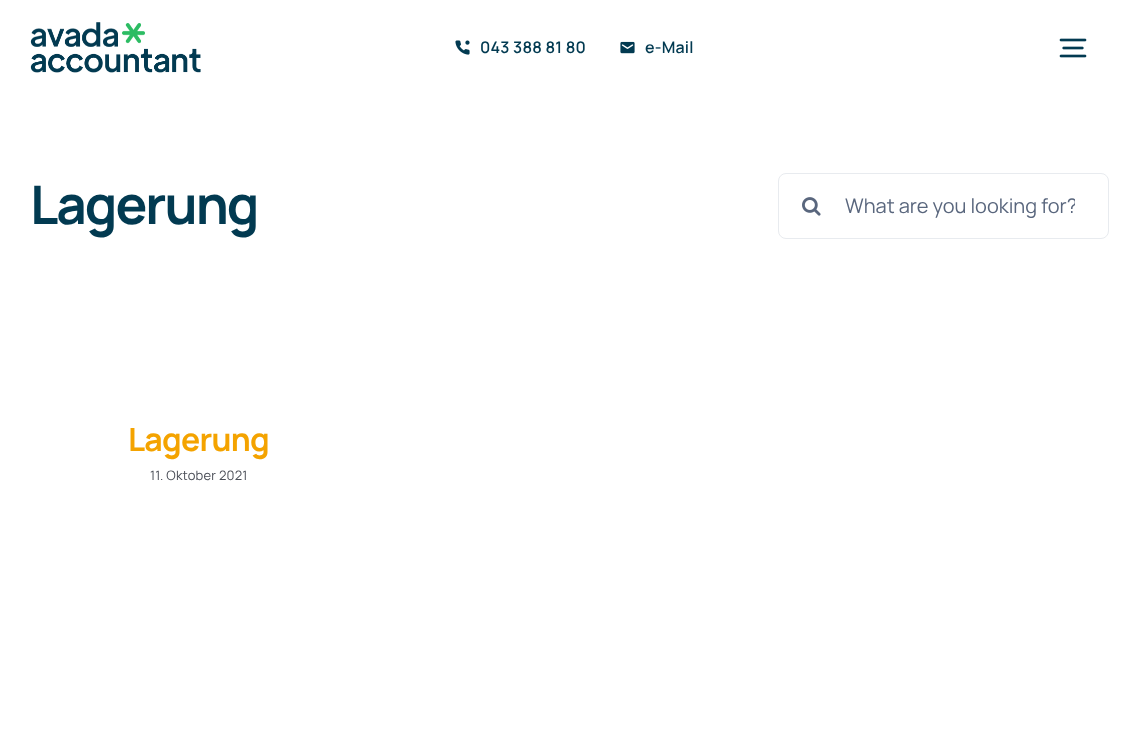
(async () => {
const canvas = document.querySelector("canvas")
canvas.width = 1139
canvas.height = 754
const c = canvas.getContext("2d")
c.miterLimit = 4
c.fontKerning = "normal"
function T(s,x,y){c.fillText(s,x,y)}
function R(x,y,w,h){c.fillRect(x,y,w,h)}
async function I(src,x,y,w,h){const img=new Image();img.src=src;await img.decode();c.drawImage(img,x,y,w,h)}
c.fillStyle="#fff"
R(0,0,1139,754)
await I("1.png",30,22,171,51)
await I("2.png",455,40,15,15)
c.letterSpacing="0.2px"
c.font="600 16px Manrope"
c.fillStyle="#023a51"
T("043 388 81 80",480,53)
await I("3.png",620,41,15,13)
T("e-Mail",645,53)
await I("4.png",1059,38,28,20)
c.letterSpacing="-2px"
c.font="bold 53px Manrope"
T("Lagerung",30,224)
c.beginPath()
c.roundRect(778.5,173.5,330,65,7.5)
c.strokeStyle="#e8ebef"
c.stroke()
await I("5.png",802,197,19,19)
c.save()
c.beginPath()
c.rect(845,192,230,27)
c.clip()
c.letterSpacing="0px"
c.font="20px Manrope"
c.fillStyle="#59667d"
T("What are you looking for?",845,213)
c.restore()
c.letterSpacing="-0.75px"
c.font="bold 32px Manrope"
c.fillStyle="#f4a300"
T("Lagerung",128,451)
c.letterSpacing="0.2px"
c.font="13px Manrope"
c.fillStyle="#4a4e57"
T("11. Oktober 2021",150,480)
})()
